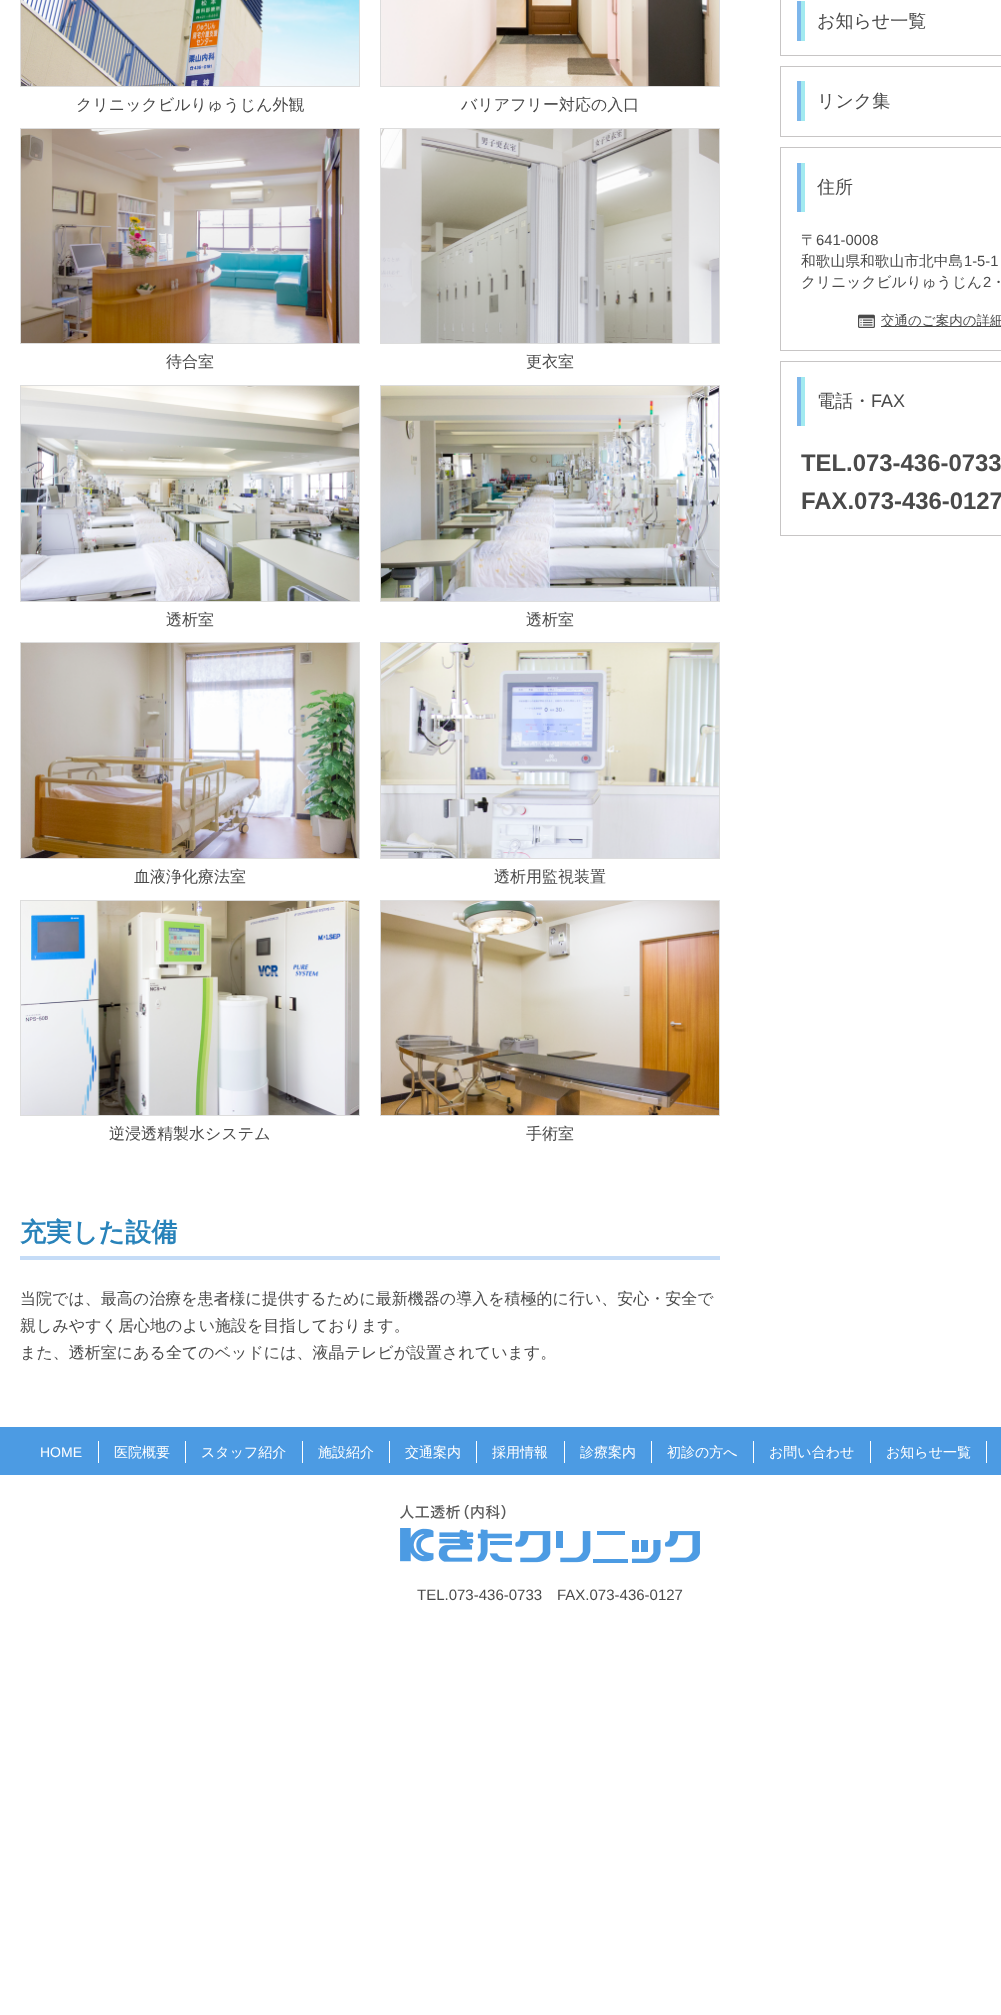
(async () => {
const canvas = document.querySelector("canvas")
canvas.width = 1001
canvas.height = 2015
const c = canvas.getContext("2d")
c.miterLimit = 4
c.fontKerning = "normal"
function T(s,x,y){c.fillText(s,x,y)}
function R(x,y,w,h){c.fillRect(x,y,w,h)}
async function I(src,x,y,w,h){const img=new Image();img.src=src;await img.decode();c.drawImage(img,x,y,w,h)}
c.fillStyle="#fff"
R(0,0,1001,2015)
c.strokeStyle="#ddd"
c.strokeRect(20.5,-.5,339,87)
await I("1.png",21,0,338,86)
c.font="500 16px WenQuanYi Zen Hei"
c.fillStyle="#4a4a4a"
T("クリニックビルりゅうじん外観",76,110)
c.strokeRect(380.5,-.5,339,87)
await I("2.png",381,0,338,86)
T("バリアフリー対応の入口",461,110)
c.strokeRect(20.5,128.5,339,215)
await I("3.png",21,129,338,214)
T("待合室",166,367)
c.strokeRect(380.5,128.5,339,215)
await I("4.png",381,129,338,214)
T("更衣室",526,367)
c.strokeRect(20.5,385.5,339,216)
await I("5.png",21,386,338,215)
T("透析室",166,625)
c.strokeRect(380.5,385.5,339,216)
await I("6.png",381,386,338,215)
T("透析室",526,625)
c.strokeRect(20.5,642.5,339,216)
await I("7.png",21,643,338,215)
T("血液浄化療法室",134,882)
c.strokeRect(380.5,642.5,339,216)
await I("8.png",381,643,338,215)
T("透析用監視装置",494,882)
c.strokeRect(20.5,900.5,339,215)
await I("9.png",21,901,338,214)
T("逆浸透精製水システム",109,1139)
c.strokeRect(380.5,900.5,339,215)
await I("10.png",381,901,338,214)
T("手術室",526,1139)
c.fillStyle="#c5dcf7"
R(20,1256,700,4)
c.font="bold 26px WenQuanYi Zen Hei"
c.fillStyle="#2983ba"
T("充実した設備",20,1241)
c.font="500 16px WenQuanYi Zen Hei"
c.fillStyle="#4a4a4a"
T("当院では、最高の治療を患者様に提供するために最新機器の導入を積極的に行い、安心・安全で",20,1304)
T("親しみやすく居心地のよい施設を目指しております。",20,1331)
T("また、透析室にある全てのベッドには、液晶テレビが設置されています。",20,1358)
c.strokeStyle="#c7c5c5"
c.strokeRect(780.5,-.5,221,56)
c.font="500 18px WenQuanYi Zen Hei"
T("お知らせ一覧",817,27)
c.fillStyle="#7db6eb"
R(797,1,4,40)
c.fillStyle="#a2eaf0"
R(801,1,4,40)
c.strokeRect(780.5,66.5,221,70)
c.fillStyle="#4a4a4a"
T("リンク集",817,107)
c.fillStyle="#7db6eb"
R(797,81,4,40)
c.fillStyle="#a2eaf0"
R(801,81,4,40)
c.strokeRect(780.5,147.5,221,203)
c.fillStyle="#7db6eb"
R(797,163,4,49)
c.fillStyle="#a2eaf0"
R(801,163,4,49)
c.fillStyle="#4a4a4a"
T("住所",817,193)
c.font="500 14.75px WenQuanYi Zen Hei"
T("〒",801,245)
c.font="14.75px Liberation Sans"
T("641-0008",816,245)
c.font="500 14.75px WenQuanYi Zen Hei"
T("和歌山県和歌山市北中島",801,266)
c.font="14.75px Liberation Sans"
T("1-5-1",964,266)
c.font="500 14.75px WenQuanYi Zen Hei"
T("クリニックビルりゅうじん",801,287)
c.font="14.75px Liberation Sans"
T("2",983,287)
c.font="500 14.75px WenQuanYi Zen Hei"
T("・",991,287)
await I("11.png",858,314,17,14)
R(881,326,120,1)
c.font="500 13.5px WenQuanYi Zen Hei"
T("交通のご案内の詳細",881,325)
c.strokeRect(780.5,361.5,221,174)
c.fillStyle="#7db6eb"
R(797,377,4,49)
c.fillStyle="#a2eaf0"
R(801,377,4,49)
c.font="500 18px WenQuanYi Zen Hei"
c.fillStyle="#4a4a4a"
T("電話・",817,407)
c.font="18px Liberation Sans"
T("FAX",871,407)
c.font="bold 23.9px Liberation Sans"
T("TEL.073-436-0733",801,471)
T("FAX.073-436-0127",801,509)
c.fillStyle="#4c9be3"
R(0,1427,1001,48)
c.fillStyle="#fff"
R(98,1441,1,22)
c.font="14px Liberation Sans"
T("HOME",40,1457)
R(185,1441,1,22)
c.font="500 14px WenQuanYi Zen Hei"
T("医院概要",114,1457)
R(302,1441,1,22)
T("スタッフ紹介",201,1457)
R(389,1441,1,22)
T("施設紹介",318,1457)
R(476,1441,1,22)
T("交通案内",405,1457)
R(564,1441,1,22)
T("採用情報",492,1457)
R(651,1441,1,22)
T("診療案内",580,1457)
R(753,1441,1,22)
T("初診の方へ",667,1457)
R(870,1441,1,22)
T("お問い合わせ",769,1457)
R(986,1441,1,22)
T("お知らせ一覧",886,1457)
await I("12.png",400,1505,300,58)
c.font="15px Liberation Sans"
c.fillStyle="#4a4a4a"
T("TEL.073-436-0733",417,1600)
T("FAX.073-436-0127",557,1600)
})()
